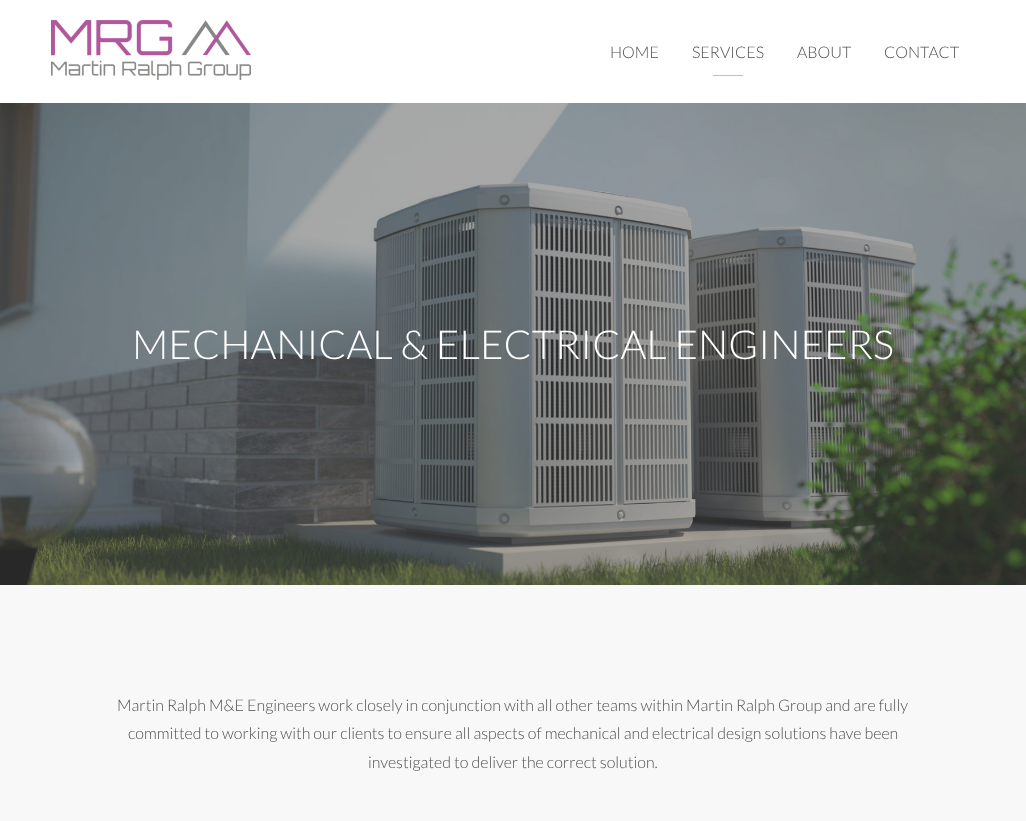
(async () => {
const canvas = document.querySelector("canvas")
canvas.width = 1026
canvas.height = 821
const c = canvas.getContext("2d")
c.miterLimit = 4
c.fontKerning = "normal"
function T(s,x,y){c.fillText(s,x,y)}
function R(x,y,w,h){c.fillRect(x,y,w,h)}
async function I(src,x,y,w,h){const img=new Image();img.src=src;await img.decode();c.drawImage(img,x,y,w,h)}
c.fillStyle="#fff"
R(0,0,1026,821)
await I("1.png",51,20,200,60)
c.font="300 16px Lato"
c.fillStyle="#505050"
T("HOME",610,58)
T("SERVICES",692,58)
c.fillStyle="#c0c498"
R(713,75,30,1)
c.fillStyle="#505050"
T("ABOUT",797,58)
T("CONTACT",884,58)
await I("2.png",0,103,1026,482)
c.font="300 40px Lato"
c.fillStyle="#fff"
T("MECHANICAL & ELECTRICAL ENGINEERS",132,359)
c.fillStyle="#f8f8f8"
R(0,585,1026,236)
c.font="300 16px Lato"
c.fillStyle="#505050"
T("Martin Ralph M&E Engineers work closely in conjunction with all other teams within Martin Ralph Group and are fully",117,711)
T("committed to working with our clients to ensure all aspects of mechanical and electrical design solutions have been",128,739)
T("investigated to deliver the correct solution.",368,768)
})()
